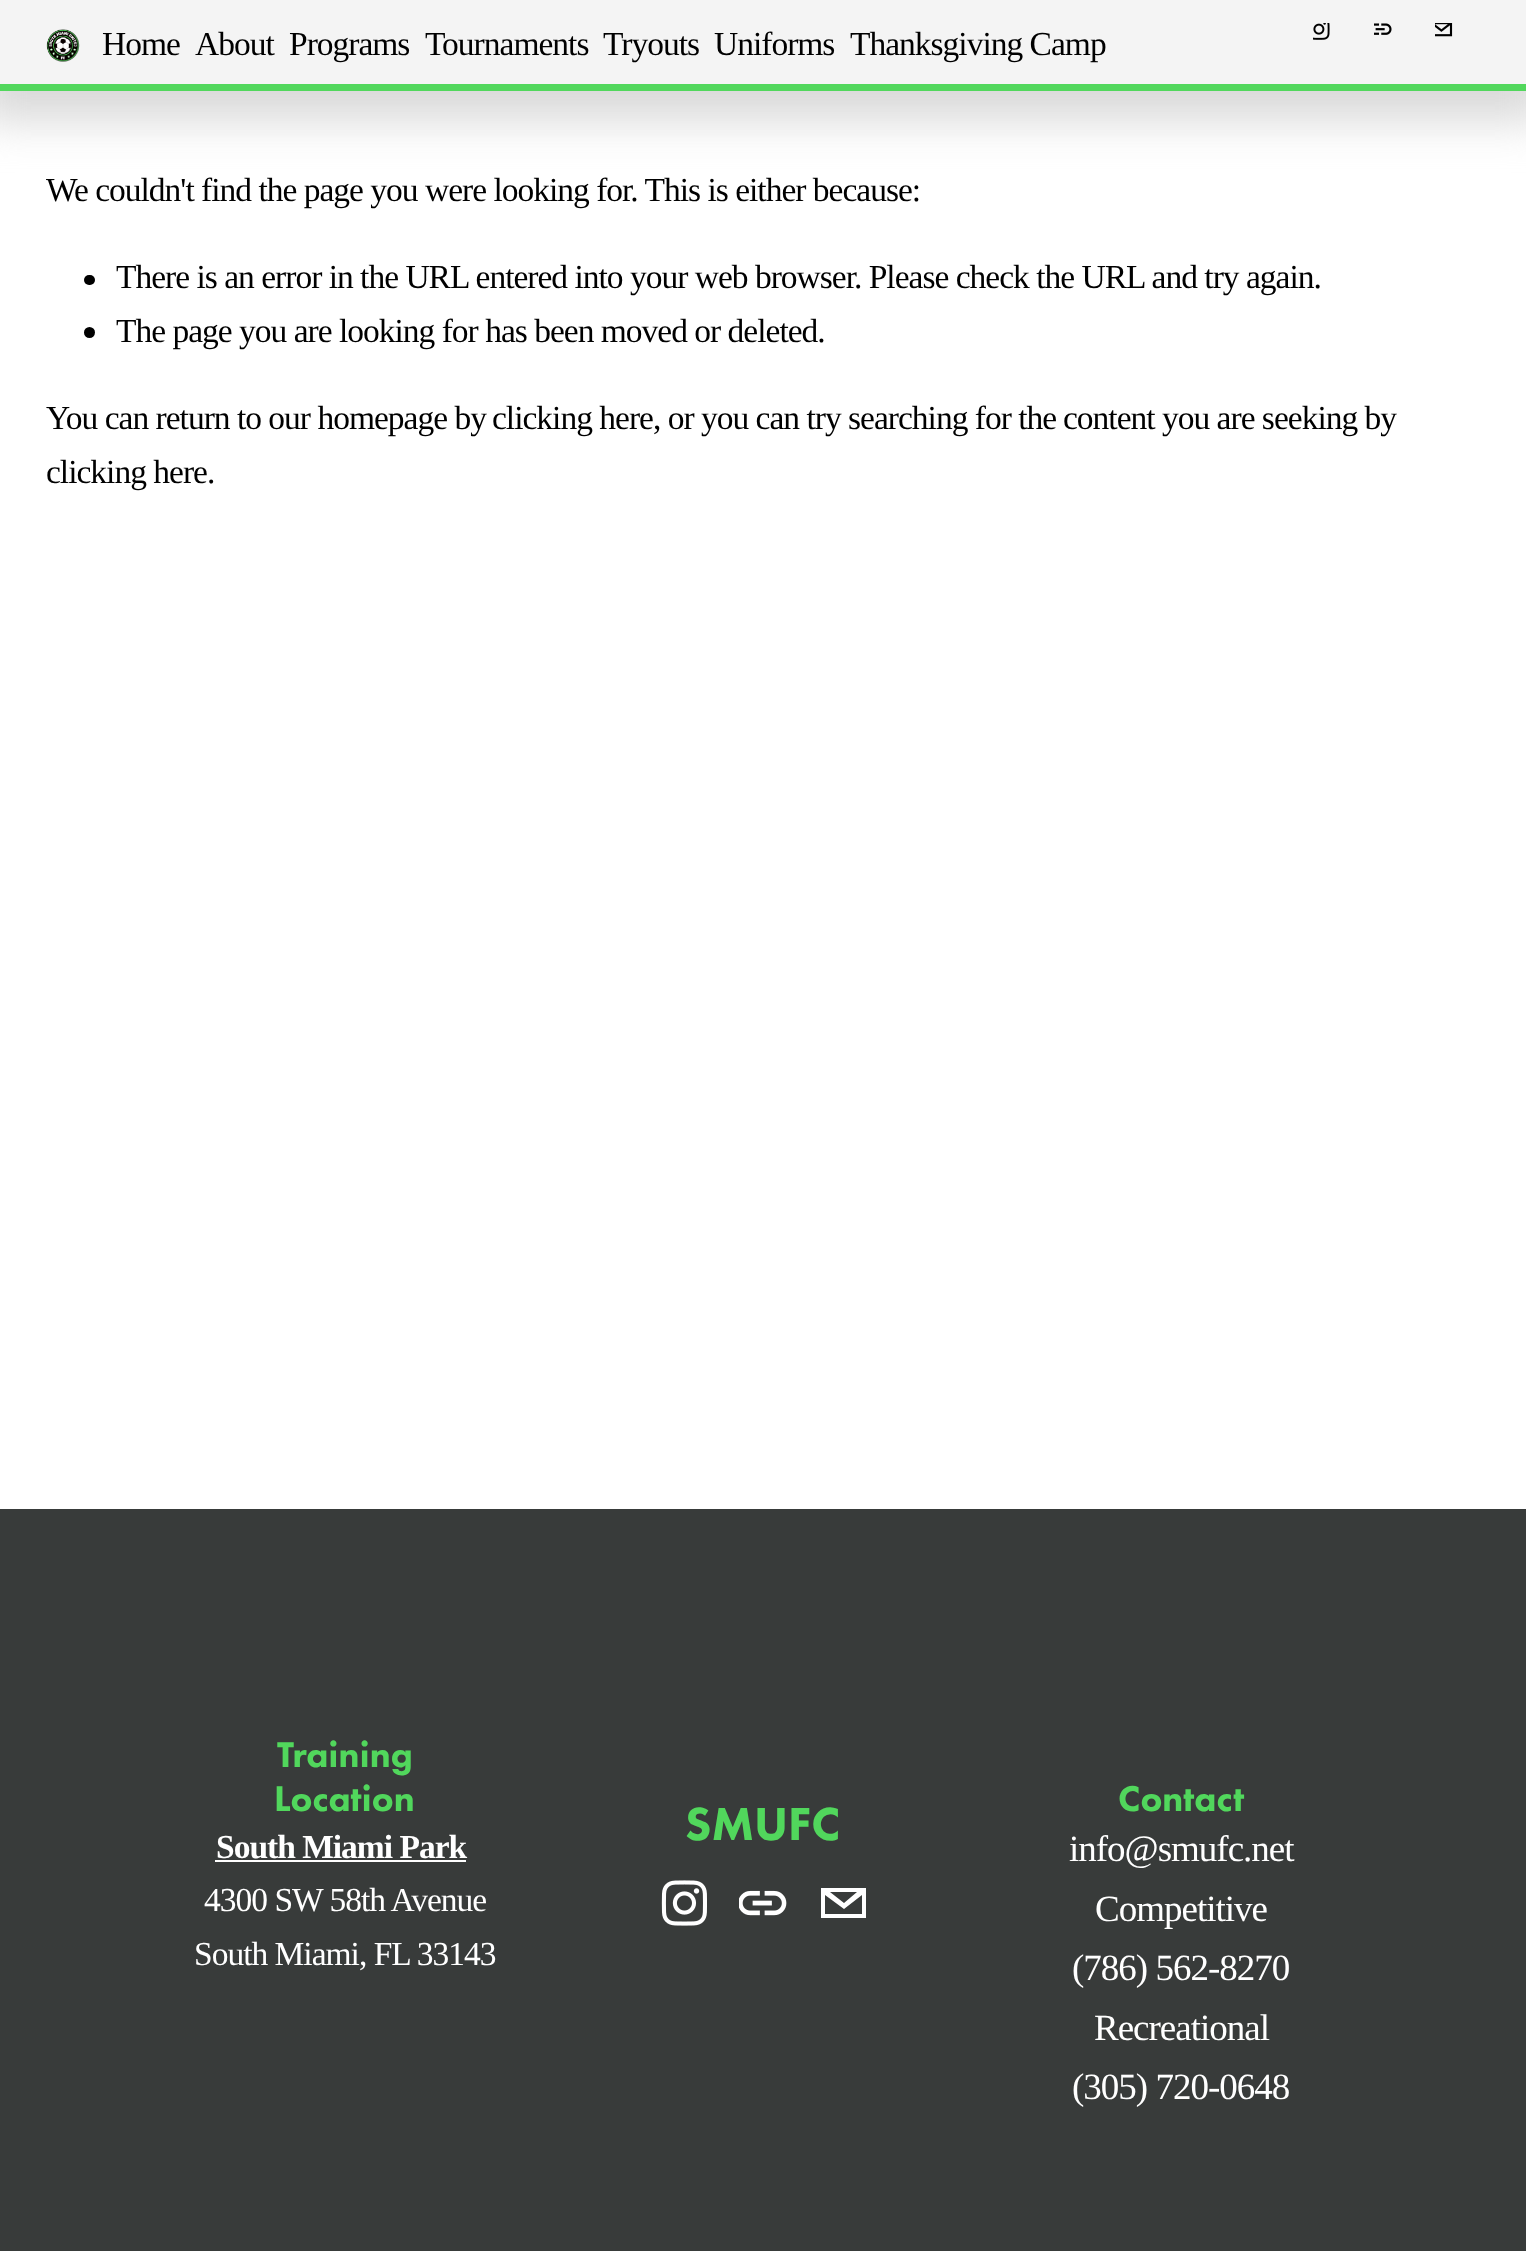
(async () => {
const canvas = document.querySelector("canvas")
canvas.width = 1526
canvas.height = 2251
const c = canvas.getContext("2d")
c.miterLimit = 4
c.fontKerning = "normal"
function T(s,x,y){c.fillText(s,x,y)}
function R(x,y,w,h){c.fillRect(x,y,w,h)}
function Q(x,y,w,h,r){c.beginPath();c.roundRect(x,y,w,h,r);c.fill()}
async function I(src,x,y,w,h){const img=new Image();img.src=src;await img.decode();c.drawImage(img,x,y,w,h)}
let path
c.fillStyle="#fff"
R(0,0,1526,2251)
c.fillStyle="#d9d9d9"
c.filter="blur(22px)"
c.beginPath()
c.rect(-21,-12,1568,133)
c.fill()
c.filter="none"
c.fillStyle="#f4f4f4"
R(0,0,1526,84)
await I("1.png",46,29,34,33)
c.letterSpacing="-1px"
c.font="33.5px Liberation Serif"
c.fillStyle="#000"
T("Home",102,55)
T("About",195,55)
T("Programs",289,55)
T("Tournaments",425,55)
T("Tryouts",603,55)
T("Uniforms",714,55)
T("Thanksgiving Camp",850,55)
await I("2.png",1313,23,17,17)
await I("3.png",1374,23,18,12)
await I("4.png",1435,23,18,14)
c.fillStyle="#51d75c"
R(0,84,1526,7)
c.fillStyle="#000"
T("We couldn't find the page you were looking for. This is either because:",46,201)
Q(84,275,11,10,5)
T("There is an error in the URL entered into your web browser. Please check the URL and try again.",116,288)
c.beginPath()
c.arc(89.5,332.5,5.5,0,7)
c.fill()
T("The page you are looking for has been moved or deleted.",116,342)
T("You can return to our homepage by",46,429)
T("clicking here, or you can try searching for the",492,429)
T("content you are seeking by",1063,429)
T("clicking here.",46,483)
c.fillStyle="#383b3a"
R(0,1509,1526,742)
c.letterSpacing="0px"
c.font="900 37px Futura PT"
c.fillStyle="#51d75c"
T("Training",277,1767)
T("Location",274,1811)
T("Contact",1118,1811)
c.font="900 48px Futura PT"
T("SMUFC",685,1840)
c.letterSpacing="-1px"
c.font="bold 33.5px Liberation Serif"
c.fillStyle="#fff"
T("South Miami Park",216,1858)
R(215,1860,251,2)
c.font="33.5px Liberation Serif"
T("4300 SW 58th Avenue",204,1911)
T("South Miami, FL 33143",194,1965)
await I("5.png",661,1880,46,46)
await I("6.png",739,1890,48,26)
path = new Path2D("M821 1888v30h45v-30zm36 4l-13 11l-14-11zm-32 22v-19l19 14l18-14v19z")
c.fill(path)
c.font="37px Liberation Serif"
T("info@smufc.net",1069,1861)
T("Competitive",1095,1921)
T("(786) 562-8270",1072,1980)
T("Recreational",1094,2040)
T("(305) 720-0648",1072,2099)
})()
